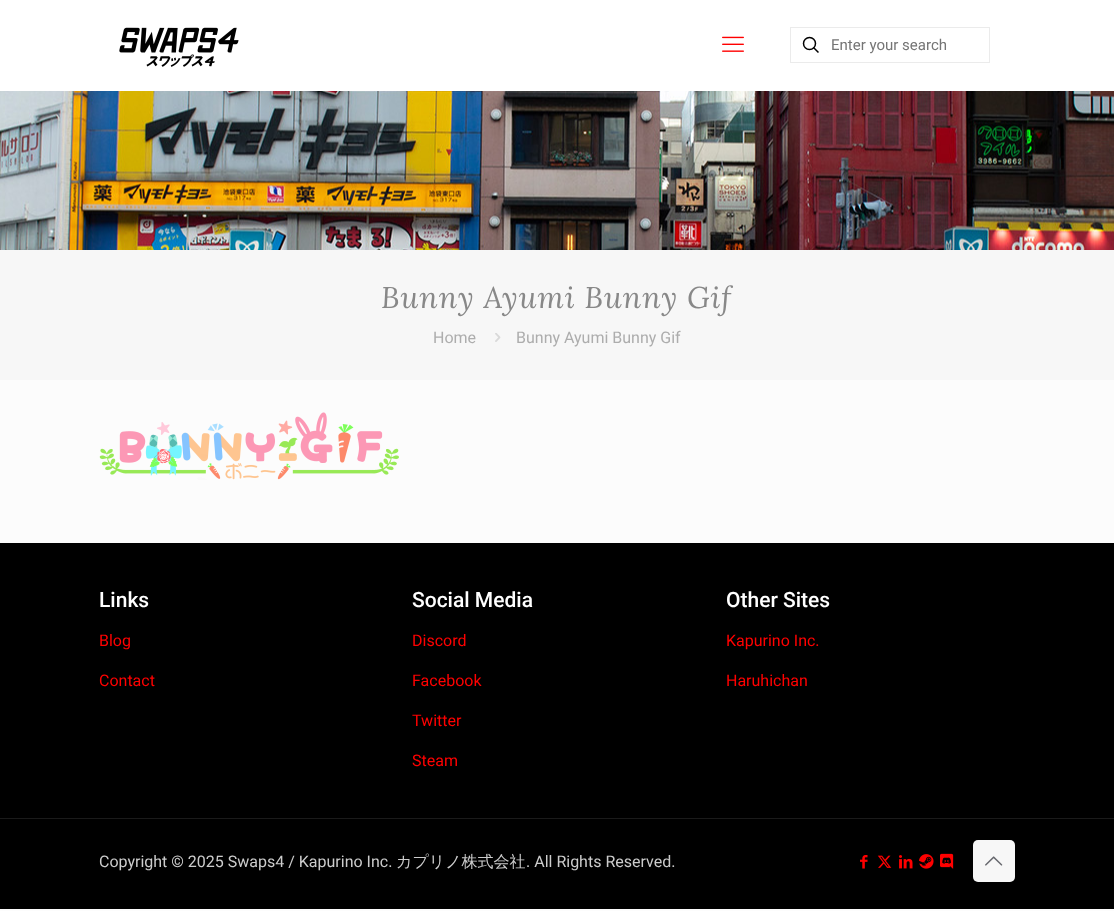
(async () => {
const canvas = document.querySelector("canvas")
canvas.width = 1114
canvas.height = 911
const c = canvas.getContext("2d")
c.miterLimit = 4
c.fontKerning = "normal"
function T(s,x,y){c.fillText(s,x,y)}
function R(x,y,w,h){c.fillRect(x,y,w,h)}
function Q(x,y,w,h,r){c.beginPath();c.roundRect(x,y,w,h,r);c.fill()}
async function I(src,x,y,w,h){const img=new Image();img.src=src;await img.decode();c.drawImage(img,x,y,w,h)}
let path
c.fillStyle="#fcfcfc"
R(0,0,1114,911)
await I("1.png",0,91,1114,159)
c.fillStyle="#fff"
R(0,0,1114,91)
await I("2.png",119,27,120,40)
await I("3.png",722,36,22,16)
c.strokeStyle="#ebebeb"
c.strokeRect(790.5,27.5,199,35)
c.beginPath()
c.arc(809.5,43.5,6,0,7)
c.strokeStyle="#000"
c.lineWidth=1.5
c.stroke()
path = new Path2D("M813.5 47.5l5 5")
c.stroke(path)
c.font="15px Roboto"
c.fillStyle="#757575"
T("Enter your search",831,50)
c.fillStyle="#f7f7f7"
R(0,250,1114,130)
c.letterSpacing="1px"
c.font="italic 30px Lora"
c.fillStyle="#888"
T("Bunny Ayumi Bunny Gif",381,308)
c.letterSpacing="0px"
c.font="16px Roboto"
c.fillStyle="#adadad"
T("Home",433,343)
await I("4.png",495,333,6,9)
T("Bunny Ayumi Bunny Gif",516,343)
await I("5.png",99,412,300,68)
c.fillStyle="#000"
R(0,543,1114,366)
c.font="500 21px Roboto"
c.fillStyle="#fff"
T("Links",99,607)
c.font="16px Roboto"
c.fillStyle="#f00"
T("Blog",99,646)
T("Contact",99,686)
c.font="500 21px Roboto"
c.fillStyle="#fff"
T("Social Media",412,607)
c.font="16px Roboto"
c.fillStyle="#f00"
T("Discord",412,646)
T("Facebook",412,686)
T("Twitter",412,726)
T("Steam",412,766)
c.font="500 21px Roboto"
c.fillStyle="#fff"
T("Other Sites",726,607)
c.font="16px Roboto"
c.fillStyle="#f00"
T("Kapurino Inc.",726,646)
T("Haruhichan",726,686)
c.fillStyle="#1a1a1a"
R(0,818,1114,1)
c.fillStyle="#ccc"
T("Copyright © 2025 Swaps4 / Kapurino Inc.",99,867)
c.font="500 16px WenQuanYi Zen Hei"
T("カプリノ株式会社",396,867)
c.font="16px Roboto"
T(". All Rights Reserved.",526,867)
await I("6.png",860,855,8,14)
await I("7.png",877,855,15,13)
await I("8.png",899,855,14,14)
await I("9.png",919,854,15,15)
await I("10.png",940,853,14,16)
c.fillStyle="#f7f7f7"
Q(973,840,42,42,5)
await I("11.png",985,856,18,10)
})()
